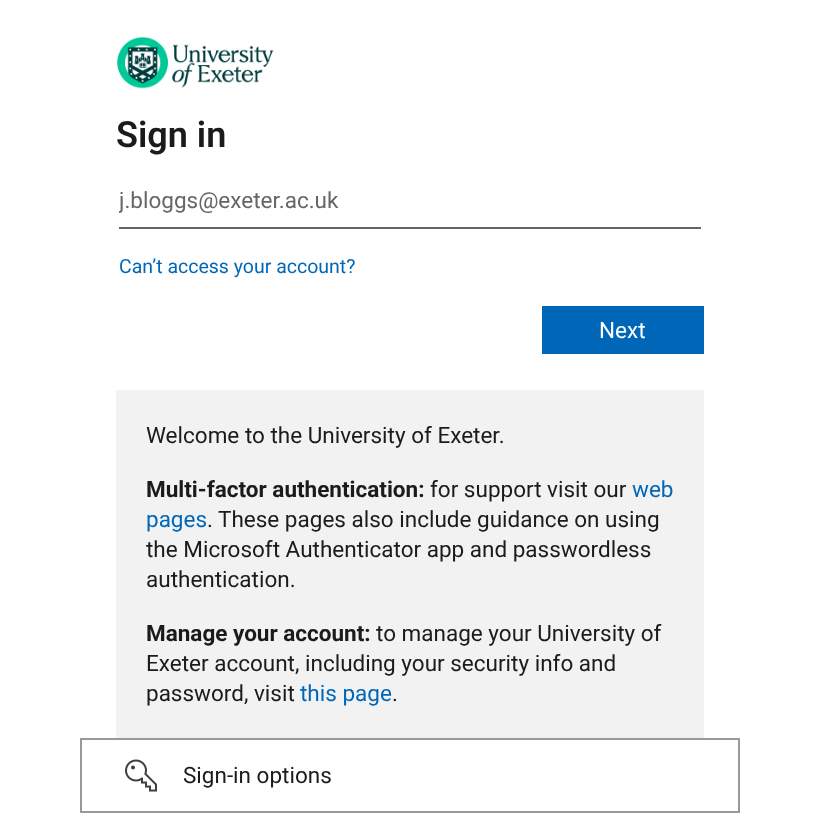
(async () => {
const canvas = document.querySelector("canvas")
canvas.width = 819
canvas.height = 815
const c = canvas.getContext("2d")
c.miterLimit = 4
c.fontKerning = "normal"
function T(s,x,y){c.fillText(s,x,y)}
function R(x,y,w,h){c.fillRect(x,y,w,h)}
async function I(src,x,y,w,h){const img=new Image();img.src=src;await img.decode();c.drawImage(img,x,y,w,h)}
c.fillStyle="#fff"
R(0,0,819,815)
await I("1.png",117,36,157,53)
c.font="600 36px Roboto"
c.fillStyle="#1b1b1b"
T("Sign in",116,147)
c.fillStyle="#666"
R(119,227,582,2)
c.save()
c.beginPath()
c.rect(119,188,567,27)
c.clip()
c.font="22.5px Roboto"
T("j.bloggs@exeter.ac.uk",119,208)
c.restore()
c.font="19.5px Roboto"
c.fillStyle="#0067b8"
T("Can’t access your account?",119,273)
R(542,306,162,48)
c.font="22.5px Roboto"
c.fillStyle="#fff"
T("Next",599,338)
c.fillStyle="#f2f2f2"
R(116,390,588,348)
c.fillStyle="#1b1b1b"
T("Welcome to the University of Exeter.",146,443)
c.font="bold 22.5px Roboto"
T("Multi-factor authentication:",146,497)
c.font="22.5px Roboto"
T("for support visit our",430,497)
c.fillStyle="#0067b8"
T("web",632,497)
T("pages",146,527)
c.fillStyle="#1b1b1b"
T(".",207,527)
T("These pages also include guidance on using",218,527)
T("the Microsoft Authenticator app and passwordless",146,557)
T("authentication.",146,587)
c.font="bold 22.5px Roboto"
T("Manage your account:",146,641)
c.font="22.5px Roboto"
T("to manage your University of",376,641)
T("Exeter account, including your security info and",146,671)
T("password, visit",146,701)
c.fillStyle="#0067b8"
T("this page",300,701)
c.fillStyle="#1b1b1b"
T(".",392,701)
c.strokeStyle="#999"
c.lineWidth=2
c.strokeRect(81,739,658,73)
await I("2.png",125,759,32,33)
T("Sign-in options",183,783)
})()
